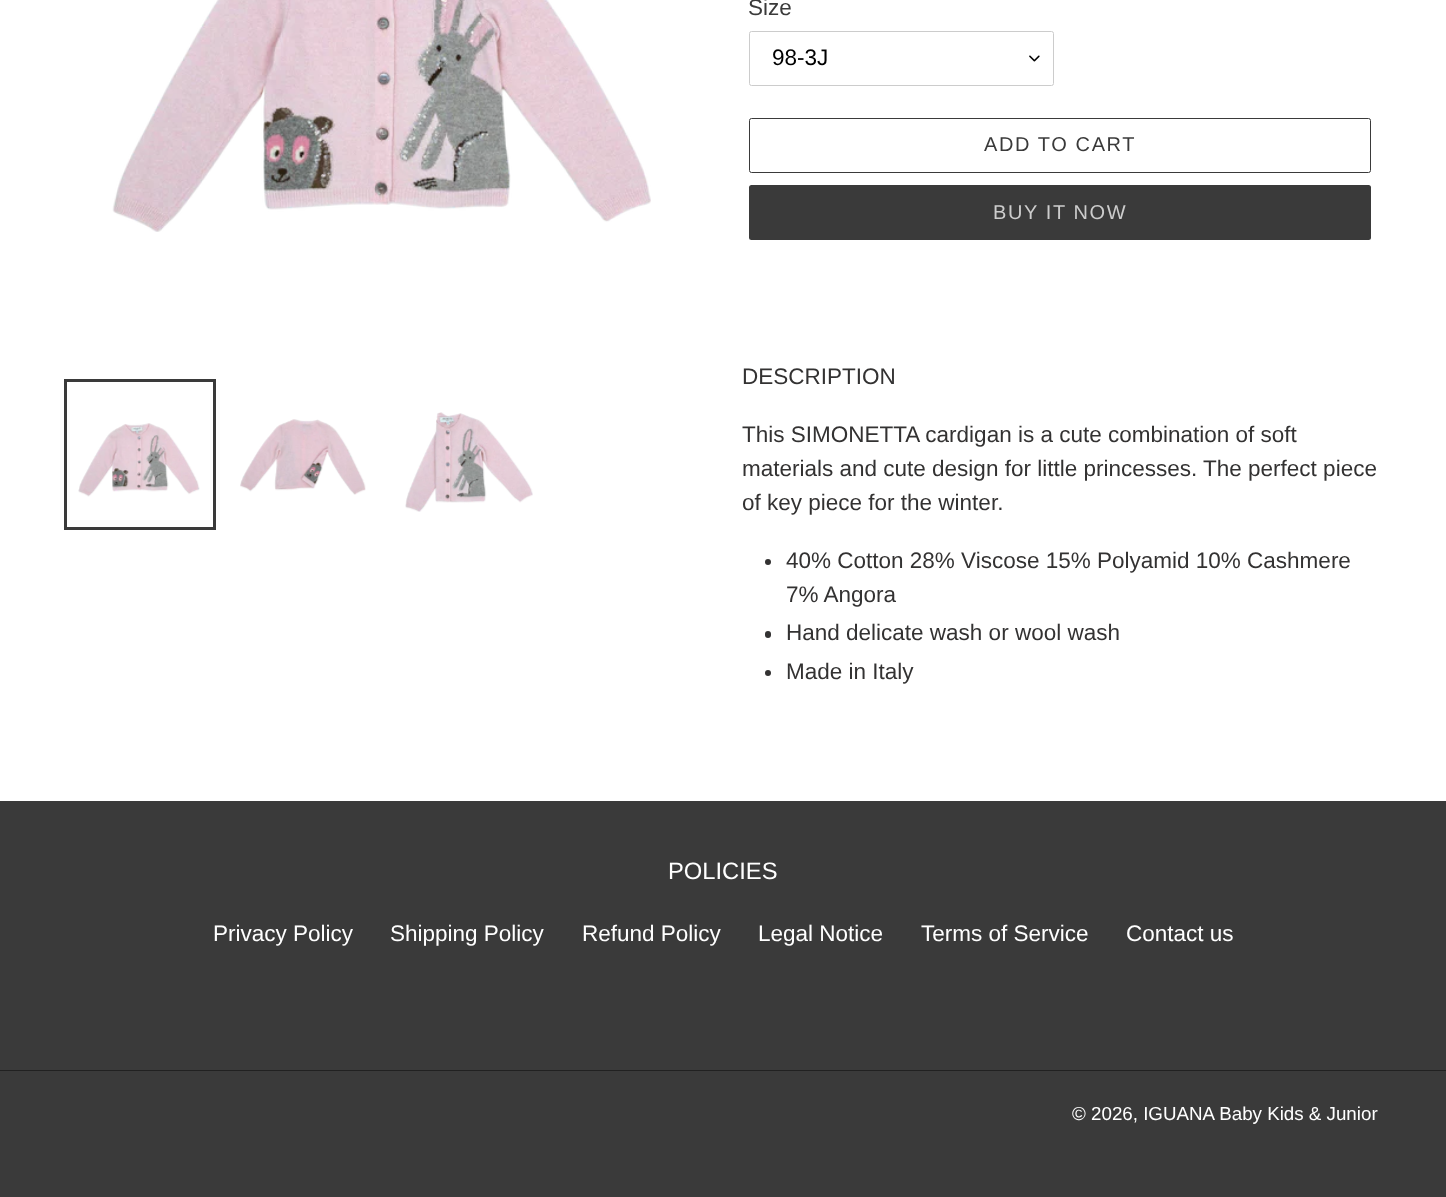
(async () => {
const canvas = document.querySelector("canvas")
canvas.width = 1446
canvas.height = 1197
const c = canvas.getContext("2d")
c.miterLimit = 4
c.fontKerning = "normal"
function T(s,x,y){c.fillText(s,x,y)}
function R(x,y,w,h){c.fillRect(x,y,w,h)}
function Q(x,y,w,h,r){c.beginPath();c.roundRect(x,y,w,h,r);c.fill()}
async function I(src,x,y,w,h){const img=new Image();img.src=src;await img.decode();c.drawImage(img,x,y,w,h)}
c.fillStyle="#fff"
R(0,0,1446,1197)
await I("1.png",112,0,539,232)
c.strokeStyle="#3a3a3a"
c.lineWidth=3
c.strokeRect(65.5,380.5,149,148)
await I("2.png",78,423,122,74)
await I("3.png",240,419,126,76)
await I("4.png",405,412,128,100)
c.font="22.5px Liberation Sans"
c.fillStyle="#3a3a3a"
T("Size",748,15)
await I("5.png",1029,55,11,7)
c.beginPath()
c.roundRect(749.5,31.5,304,54,2)
c.strokeStyle="#ccc"
c.lineWidth=1
c.stroke()
c.fillStyle="#000"
T("98-3J",772,65)
c.beginPath()
c.roundRect(749.5,118.5,621,54,2)
c.strokeStyle="#3a3a3a"
c.stroke()
c.letterSpacing="1.6px"
c.font="20px Liberation Sans"
c.fillStyle="#3a3a3a"
T("ADD TO CART",984,151)
Q(749,185,622,55,2.5)
c.fillStyle="#ccc"
T("BUY IT NOW",993,219)
c.letterSpacing="0px"
c.font="22.5px Liberation Sans"
c.fillStyle="#333232"
T("DESCRIPTION",742,384)
T("This SIMONETTA cardigan is a cute combination of soft",742,442)
T("materials and cute design for little princesses. The perfect piece",742,476)
T("of key piece for the winter.",742,510)
c.beginPath()
c.arc(768,562,3,0,7)
c.fill()
T("40% Cotton 28% Viscose 15% Polyamid 10% Cashmere",786,568)
T("7% Angora",786,602)
Q(765,631,6,7,3)
T("Hand delicate wash or wool wash",786,640)
c.beginPath()
c.arc(768,673,3,0,7)
c.fill()
T("Made in Italy",786,679)
c.fillStyle="#3a3a3a"
R(0,801,1446,396)
c.font="23.75px Liberation Sans"
c.fillStyle="#fff"
T("POLICIES",668,879)
c.font="22.5px Liberation Sans"
T("Privacy Policy",213,941)
T("Shipping Policy",390,941)
T("Refund Policy",582,941)
T("Legal Notice",758,941)
T("Terms of Service",921,941)
T("Contact us",1126,941)
c.fillStyle="#212121"
R(0,1070,1446,1)
c.font="18.75px Liberation Sans"
c.fillStyle="#fff"
T("© 2026, IGUANA Baby Kids & Junior",1072,1120)
})()
